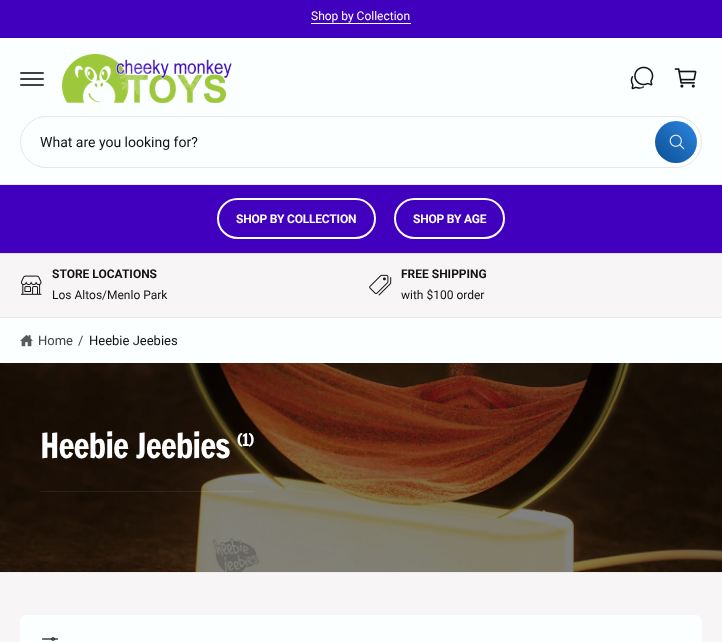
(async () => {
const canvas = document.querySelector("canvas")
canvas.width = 722
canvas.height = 642
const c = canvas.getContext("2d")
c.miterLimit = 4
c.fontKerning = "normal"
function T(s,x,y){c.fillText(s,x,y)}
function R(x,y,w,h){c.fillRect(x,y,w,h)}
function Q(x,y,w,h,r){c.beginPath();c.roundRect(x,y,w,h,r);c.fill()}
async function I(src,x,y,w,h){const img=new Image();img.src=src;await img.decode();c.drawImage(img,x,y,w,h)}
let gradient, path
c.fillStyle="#f7f5f5"
R(0,0,722,642)
c.fillStyle="#4000be"
R(0,0,722,38)
c.font="12px Roboto"
c.fillStyle="#fff"
T("Shop by Collection",311,20)
R(311,23,100,1)
c.fillStyle="#fcffff"
R(0,38,722,146)
c.fillStyle="#e9ecec"
R(0,184,722,1)
await I("1.png",61,53,171,50)
path = new Path2D("M21 73h22m-22 6h22m-22 6h22")
c.strokeStyle="#414141"
c.lineWidth=2
c.lineCap="round"
c.stroke(path)
await I("3.png",630,66,24,24)
await I("2.png",119,63,532,32)
await I("4.png",674,68,23,20)
gradient = c.createLinearGradient(655,163,697,121)
gradient.addColorStop(.12,"#0f559d")
gradient.addColorStop(.86,"#277ed6")
c.fillStyle = gradient
c.beginPath()
c.arc(676,142,21,0,7)
c.fill()
await I("5.png",669,134,16,16)
c.beginPath()
c.roundRect(20.5,116.5,681,51,25.5)
c.strokeStyle="#e5e7e7"
c.lineWidth=1
c.stroke()
c.font="14px Roboto"
c.fillStyle="#121212"
T("What are you looking for?",40,147)
c.fillStyle="#4000be"
R(0,185,722,68)
c.beginPath()
c.roundRect(218,199,157,39,19.5)
c.strokeStyle="#fff"
c.lineWidth=2
c.stroke()
c.letterSpacing="-0.2px"
c.font="bold 12px Roboto"
c.fillStyle="#fff"
T("SHOP BY COLLECTION",236,223)
c.beginPath()
c.roundRect(395,199,109,39,19.5)
c.stroke()
T("SHOP BY AGE",413,223)
c.fillStyle="#e5e3e3"
R(0,253,722,1)
R(0,317,722,1)
await I("6.png",20,275,22,20)
c.letterSpacing="0px"
c.fillStyle="#121212"
T("STORE LOCATIONS",52,278)
c.font="12px Roboto"
T("Los Altos/Menlo Park",52,299)
await I("7.png",369,274,23,22)
c.font="bold 12px Roboto"
T("FREE SHIPPING",401,278)
c.font="12px Roboto"
T("with $100 order",401,299)
c.fillStyle="#fcffff"
R(0,318,722,45)
await I("8.png",20,334,13,13)
c.font="13px Roboto"
c.fillStyle="#414141"
T("Home",38,345)
T("/",78,345)
c.fillStyle="#121212"
T("Heebie Jeebies",89,345)
await I("9.png",0,363,722,209)
c.letterSpacing="-1px"
c.font="34px Francois One"
c.fillStyle="#fff"
T("Heebie Jeebies",40,458)
c.font="17px Francois One"
T("(1)",237,446)
c.fillStyle="#ffffff14"
R(40,491,213,1)
c.fillStyle="#ededed"
R(0,572,722,1)
c.fillStyle="#fcffff"
Q(20,615,682,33,6)
await I("10.png",42,637,16,4)
})()
